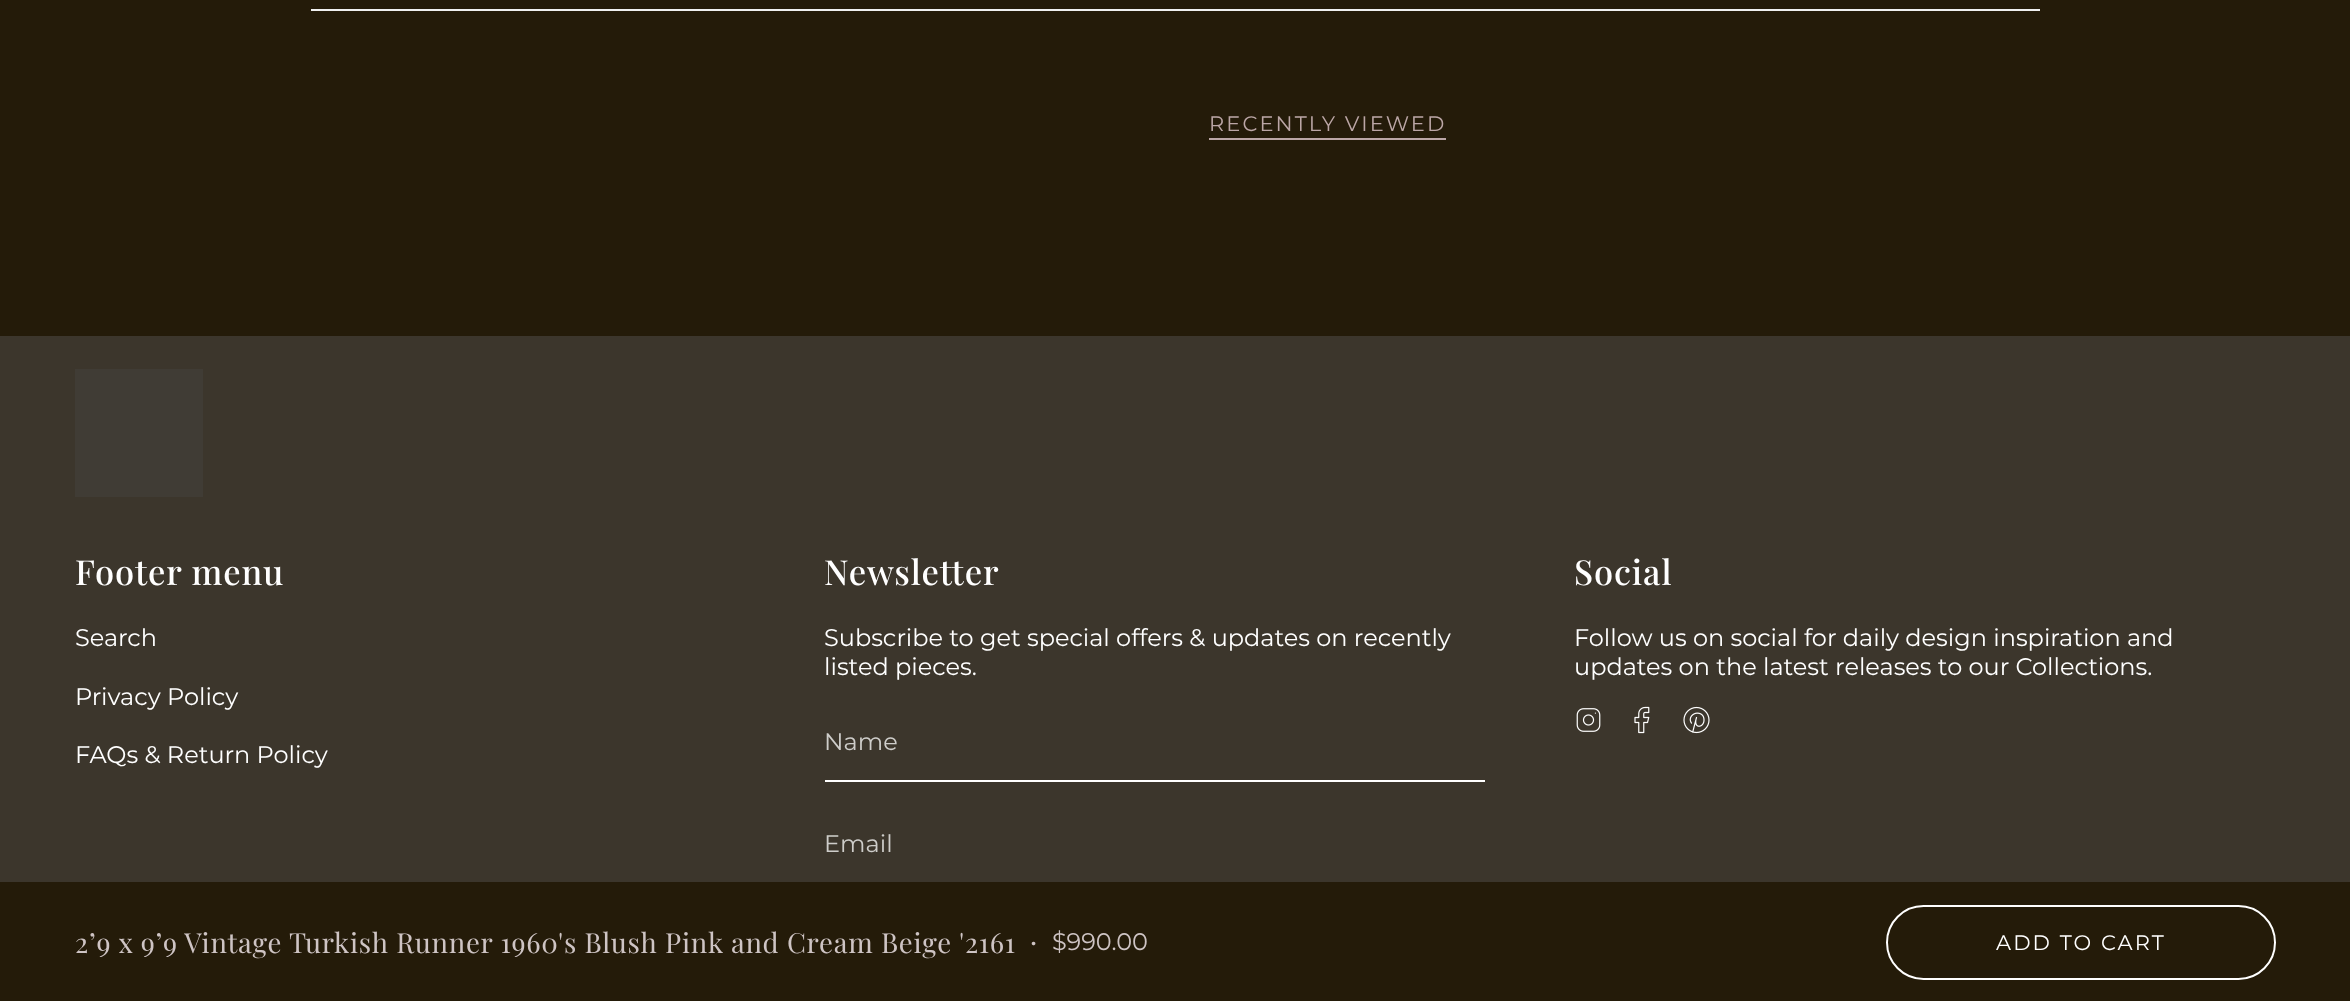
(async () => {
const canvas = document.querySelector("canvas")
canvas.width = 2350
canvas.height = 1001
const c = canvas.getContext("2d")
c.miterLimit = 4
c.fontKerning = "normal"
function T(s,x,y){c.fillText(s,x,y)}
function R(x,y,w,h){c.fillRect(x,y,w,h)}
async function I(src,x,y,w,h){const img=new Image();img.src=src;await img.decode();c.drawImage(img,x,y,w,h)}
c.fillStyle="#241b09"
R(0,0,2350,1001)
c.fillStyle="#f0f0f0"
R(311,9,1729,2)
c.letterSpacing="2.1px"
c.font="21px Montserrat"
c.fillStyle="#bba6a6"
T("RECENTLY VIEWED",1209,131)
R(1209,138,237,2)
c.letterSpacing="0.7px"
c.font="27.6px Playfair Display"
c.fillStyle="#cec4c4"
T("2’9 x 9’9 Vintage Turkish Runner 1960's Blush Pink and Cream Beige '2161",75,953)
c.letterSpacing="0px"
c.font="24px Montserrat"
T("•",1030,950)
T("$990.00",1052,950)
c.beginPath()
c.roundRect(1887,906,388,73,36.5)
c.strokeStyle="#fff"
c.lineWidth=2
c.stroke()
c.letterSpacing="2.1px"
c.font="21px Montserrat"
c.fillStyle="#fff"
T("ADD TO CART",1996,950)
c.fillStyle="#3c362c"
R(0,336,2350,546)
c.fillStyle="#403c35"
R(75,369,128,128)
c.letterSpacing="0.9px"
c.font="500 34.5px Playfair Display"
c.fillStyle="#fff"
T("Footer menu",75,585)
c.letterSpacing="0px"
c.font="24px Montserrat"
T("Search",75,646)
T("Privacy Policy",75,705)
T("FAQs & Return Policy",75,763)
c.letterSpacing="0.9px"
c.font="500 34.5px Playfair Display"
T("Newsletter",824,585)
c.letterSpacing="0px"
c.font="24px Montserrat"
T("Subscribe to get special offers & updates on recently",824,646)
T("listed pieces.",824,675)
R(825,780,660,2)
c.fillStyle="#cecdca"
T("Name",824,750)
T("Email",824,852)
c.letterSpacing="0.9px"
c.font="500 34.5px Playfair Display"
c.fillStyle="#fff"
T("Social",1574,585)
c.letterSpacing="0px"
c.font="24px Montserrat"
T("Follow us on social for daily design inspiration and",1574,646)
T("updates on the latest releases to our Collections.",1574,675)
await I("1.png",1576,708,25,24)
await I("2.png",1634,706,16,28)
await I("3.png",1683,706,27,28)
})()
